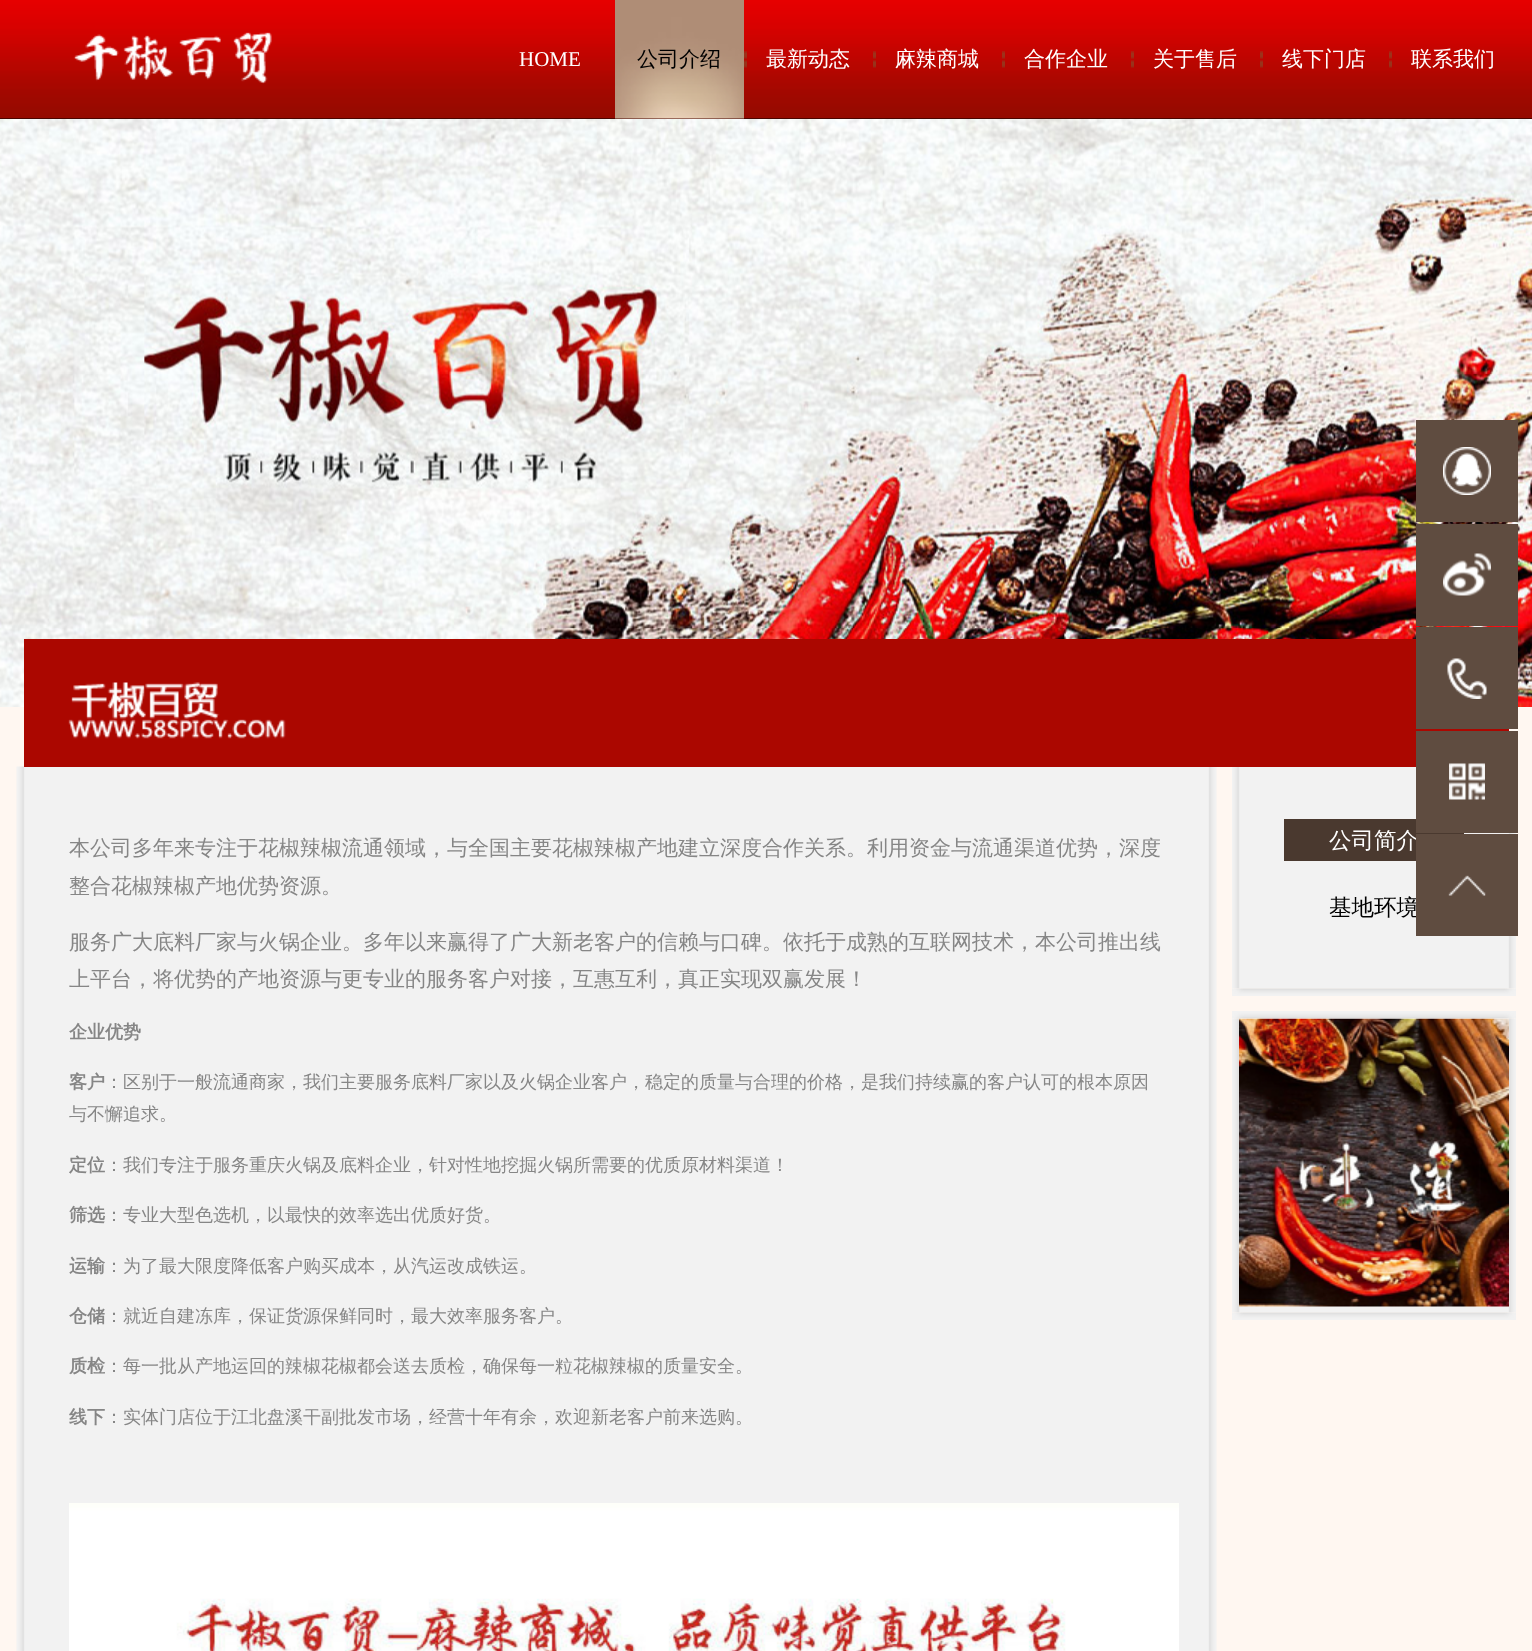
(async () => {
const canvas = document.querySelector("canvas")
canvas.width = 1532
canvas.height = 1651
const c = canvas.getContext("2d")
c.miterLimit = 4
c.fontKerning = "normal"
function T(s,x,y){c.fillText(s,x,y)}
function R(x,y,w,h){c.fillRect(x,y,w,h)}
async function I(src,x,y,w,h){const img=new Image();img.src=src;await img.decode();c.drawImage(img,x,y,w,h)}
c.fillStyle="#000"
R(0,0,1532,1651)
await I("1.png",0,0,1532,119)
await I("2.png",73,32,199,52)
c.font="21px Liberation Serif"
c.fillStyle="#fff"
T("HOME",519,66)
await I("3.png",615,0,129,119)
c.font="500 21px WenQuanYi Zen Hei"
c.fillStyle="#000"
T("公司介绍",637,66)
await I("4.png",744,51,3,17)
c.fillStyle="#fff"
T("最新动态",766,66)
await I("4.png",873,51,3,17)
T("麻辣商城",895,66)
await I("4.png",1002,51,3,17)
T("合作企业",1024,66)
await I("4.png",1131,51,3,17)
T("关于售后",1153,66)
await I("4.png",1260,51,3,17)
T("线下门店",1282,66)
await I("4.png",1389,51,3,17)
T("联系我们",1411,66)
await I("5.png",0,119,1532,588)
c.fillStyle="#5f4c40"
R(1416,420,102,102)
await I("6.png",1443,447,48,48)
R(1416,524,102,102)
await I("7.png",1443,553,48,43)
c.fillStyle="#fff7f1"
R(0,707,1532,944)
await I("12.png",16,766,1201,885)
c.fillStyle="#ab0700"
R(24,639,1485,128)
c.fillStyle="#5f4c40"
R(1416,627,102,102)
await I("8.png",1447,658,40,41)
await I("14.png",1232,767,284,222)
c.fillStyle="#4a392f"
R(1284,819,180,42)
c.font="500 22.5px WenQuanYi Zen Hei"
c.fillStyle="#fff"
T("公司简介",1329,848)
c.fillStyle="#5f4c40"
R(1416,731,102,102)
await I("9.png",1449,763,36,37)
c.fillStyle="#000"
T("基地环境",1329,915)
c.fillStyle="#5f4c40"
R(1416,834,102,102)
await I("10.png",1448,875,38,21)
await I("11.png",68,682,218,57)
c.font="500 21px WenQuanYi Zen Hei"
c.fillStyle="#868686"
T("本公司多年来专注于花椒辣椒流通领域，与全国主要花椒辣椒产地建立深度合作关系。利用资金与流通渠道优势，深度",69,855)
T("整合花椒辣椒产地优势资源。",69,893)
T("服务广大底料厂家与火锅企业。多年以来赢得了广大新老客户的信赖与口碑。依托于成熟的互联网技术，本公司推出线",69,949)
T("上平台，将优势的产地资源与更专业的服务客户对接，互惠互利，真正实现双赢发展！",69,986)
c.font="bold 18px WenQuanYi Zen Hei"
T("企业优势",69,1038)
T("客户",69,1088)
c.font="500 18px WenQuanYi Zen Hei"
T("：区别于一般流通商家，我们主要服务底料厂家以及火锅企业客户，稳定的质量与合理的价格，是我们持续赢的客户认可的根本原因",105,1088)
T("与不懈追求。",69,1120)
c.font="bold 18px WenQuanYi Zen Hei"
T("定位",69,1171)
c.font="500 18px WenQuanYi Zen Hei"
T("：我们专注于服务重庆火锅及底料企业，针对性地挖掘火锅所需要的优质原材料渠道！",105,1171)
c.font="bold 18px WenQuanYi Zen Hei"
T("筛选",69,1221)
c.font="500 18px WenQuanYi Zen Hei"
T("：专业大型色选机，以最快的效率选出优质好货。",105,1221)
c.font="bold 18px WenQuanYi Zen Hei"
T("运输",69,1272)
c.font="500 18px WenQuanYi Zen Hei"
T("：为了最大限度降低客户购买成本，从汽运改成铁运。",105,1272)
c.font="bold 18px WenQuanYi Zen Hei"
T("仓储",69,1322)
c.font="500 18px WenQuanYi Zen Hei"
T("：就近自建冻库，保证货源保鲜同时，最大效率服务客户。",105,1322)
c.font="bold 18px WenQuanYi Zen Hei"
T("质检",69,1372)
c.font="500 18px WenQuanYi Zen Hei"
T("：每一批从产地运回的辣椒花椒都会送去质检，确保每一粒花椒辣椒的质量安全。",105,1372)
c.font="bold 18px WenQuanYi Zen Hei"
T("线下",69,1423)
c.font="500 18px WenQuanYi Zen Hei"
T("：实体门店位于江北盘溪干副批发市场，经营十年有余，欢迎新老客户前来选购。",105,1423)
await I("13.png",69,1503,1110,148)
await I("15.png",1232,988,284,8)
await I("16.png",1232,1011,284,8)
await I("17.png",1232,1018,284,295)
await I("18.png",1239,1018,270,289)
await I("15.png",1232,1312,284,8)
})()
